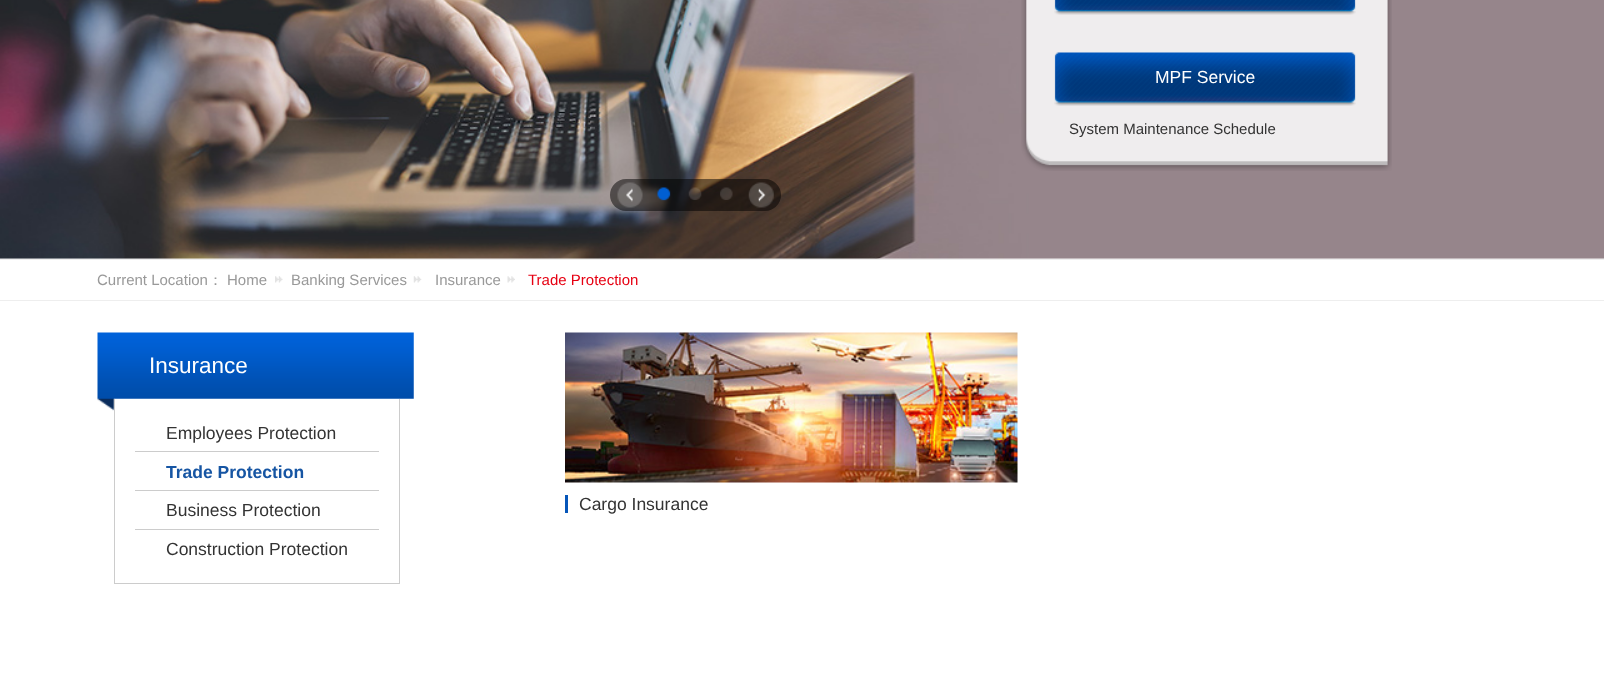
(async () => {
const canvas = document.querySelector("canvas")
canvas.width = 1604
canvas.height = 697
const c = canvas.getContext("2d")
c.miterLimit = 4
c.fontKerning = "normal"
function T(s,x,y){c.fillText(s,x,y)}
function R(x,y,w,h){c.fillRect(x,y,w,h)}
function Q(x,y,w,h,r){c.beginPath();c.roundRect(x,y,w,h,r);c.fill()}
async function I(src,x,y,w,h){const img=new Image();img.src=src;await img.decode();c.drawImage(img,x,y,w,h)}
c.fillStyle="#fff"
R(0,0,1604,697)
await I("1.png",0,0,1604,259)
await I("2.png",1021,0,371,171)
await I("3.png",1054,0,302,15)
await I("4.png",1054,52,302,54)
c.font="17.5px Liberation Sans"
T("MPF Service",1155,83)
c.font="15px Liberation Sans"
c.fillStyle="#333"
T("System Maintenance Schedule",1069,134)
c.fillStyle="#00000080"
Q(610,179,171,32,16)
await I("5.png",657,187,14,14)
await I("6.png",688,187,14,13)
await I("7.png",720,187,13,13)
await I("8.png",617,182,26,26)
await I("9.png",748,182,26,26)
c.fillStyle="#eee"
R(0,259,1604,1)
R(0,300,1604,1)
c.fillStyle="#999"
T("Current Location",97,285)
c.font="500 15px WenQuanYi Zen Hei"
T("：",208,285)
c.font="15px Liberation Sans"
T("Home",227,285)
await I("10.png",275,276,8,7)
T("Banking Services",291,285)
await I("11.png",413,276,9,7)
T("Insurance",435,285)
await I("12.png",507,276,8,7)
c.fillStyle="#e60012"
T("Trade Protection",528,285)
await I("13.png",97,332,317,79)
c.font="22.5px Liberation Sans"
c.fillStyle="#fff"
T("Insurance",149,373)
c.fillStyle="#ccc"
R(399,399,1,185)
R(114,583,286,1)
R(114,399,1,185)
c.font="17.5px Liberation Sans"
c.fillStyle="#333"
T("Employees Protection",166,439)
c.fillStyle="#ccc"
R(135,451,244,1)
c.font="bold 17.5px Liberation Sans"
c.fillStyle="#1655a3"
T("Trade Protection",166,478)
c.fillStyle="#ccc"
R(135,490,244,1)
c.font="17.5px Liberation Sans"
c.fillStyle="#333"
T("Business Protection",166,516)
c.fillStyle="#ccc"
R(135,529,244,1)
c.fillStyle="#333"
T("Construction Protection",166,555)
await I("14.png",565,332,453,151)
c.fillStyle="#0656b9"
R(565,495,3,18)
c.fillStyle="#333"
T("Cargo Insurance",579,510)
})()
